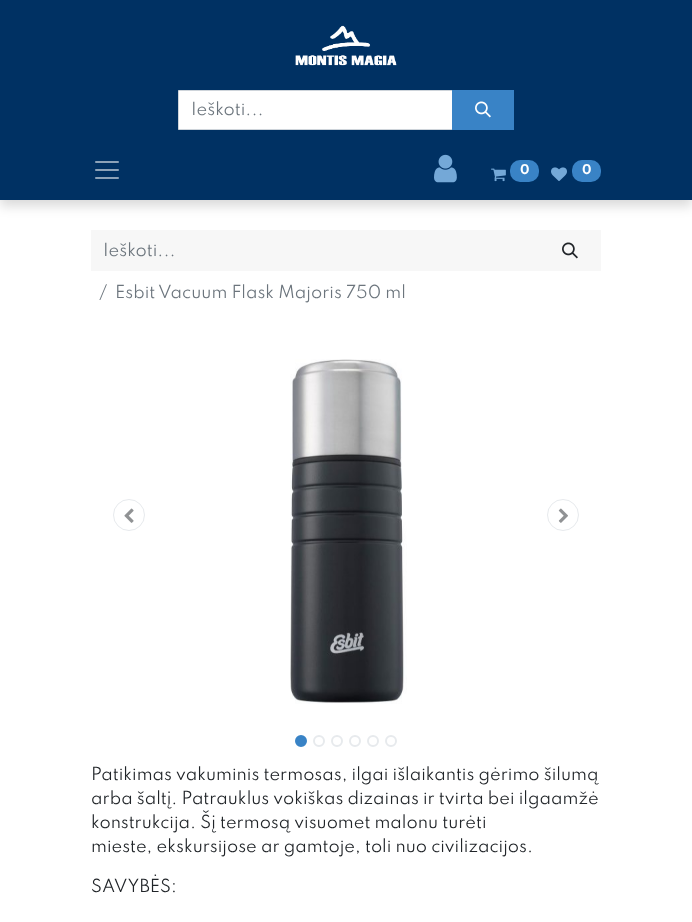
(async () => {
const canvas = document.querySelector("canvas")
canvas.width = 692
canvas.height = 922
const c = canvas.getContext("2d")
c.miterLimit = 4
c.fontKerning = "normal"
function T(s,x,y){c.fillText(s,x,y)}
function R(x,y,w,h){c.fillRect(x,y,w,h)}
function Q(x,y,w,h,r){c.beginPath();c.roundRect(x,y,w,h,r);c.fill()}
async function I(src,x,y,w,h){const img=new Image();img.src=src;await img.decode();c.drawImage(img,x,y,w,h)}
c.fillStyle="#fff"
R(0,0,692,922)
c.fillStyle="#00000026"
c.filter="blur(6px)"
c.beginPath()
c.rect(0,6,692,200)
c.fill()
c.filter="none"
c.fillStyle="#003163"
R(0,0,692,200)
await I("1.png",295,25,102,41)
c.fillStyle="#fff"
c.beginPath()
c.rect(178.5,90.5,274,39)
c.fill()
c.strokeStyle="#ced4da"
c.stroke()
c.font="16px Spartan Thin"
c.fillStyle="#6c757d"
T("Ieškoti...",191,115)
c.fillStyle="#3983c6"
R(452,90,62,40)
await I("2.png",475,101,16,17)
await I("3.png",95,161,24,18)
await I("4.png",434,154,23,29)
await I("5.png",491,168,15,14)
Q(510,160,29,22,10)
c.font="bold 12px Spartan Thin"
c.fillStyle="#fff"
T("0",520,174)
await I("6.png",551,167,16,14)
c.fillStyle="#3983c6"
Q(572,160,29,22,10)
c.fillStyle="#fff"
T("0",582,174)
c.fillStyle="#f7f7f7"
R(91,230,510,41)
c.font="16px Spartan Thin"
c.fillStyle="#6c757d"
T("Ieškoti...",103,256)
await I("7.png",562,242,16,17)
T("/",99,298)
T("Esbit Vacuum Flask Majoris 750 ml",115,298)
c.beginPath()
c.arc(129,515,15.5,0,7)
c.strokeStyle="#e7eaed"
c.stroke()
await I("8.png",124,508,10,15)
await I("9.png",290,359,117,345)
c.beginPath()
c.arc(563,515,15.5,0,7)
c.stroke()
await I("10.png",558,508,10,15)
c.fillStyle="#3983c6"
c.beginPath()
c.arc(301,741,5,0,7)
c.fill()
c.strokeStyle="#3983c6"
c.lineWidth=2
c.stroke()
c.beginPath()
c.arc(319,741,5,0,7)
c.strokeStyle="#e7eaed"
c.stroke()
c.beginPath()
c.arc(337,741,5,0,7)
c.stroke()
c.beginPath()
c.arc(355,741,5,0,7)
c.stroke()
c.beginPath()
c.arc(373,741,5,0,7)
c.stroke()
c.beginPath()
c.arc(391,741,5,0,7)
c.stroke()
c.fillStyle="#212529"
T("Patikimas vakuminis termosas, ilgai išlaikantis gėrimo šilumą",91,780)
T("arba šaltį. Patrauklus vokiškas dizainas ir tvirta bei ilgaamžė",91,804)
T("konstrukcija. Šį termosą visuomet malonu turėti",91,828)
T("mieste, ekskursijose ar gamtoje, toli nuo civilizacijos.",91,852)
T("SAVYBĖS:",91,892)
})()
